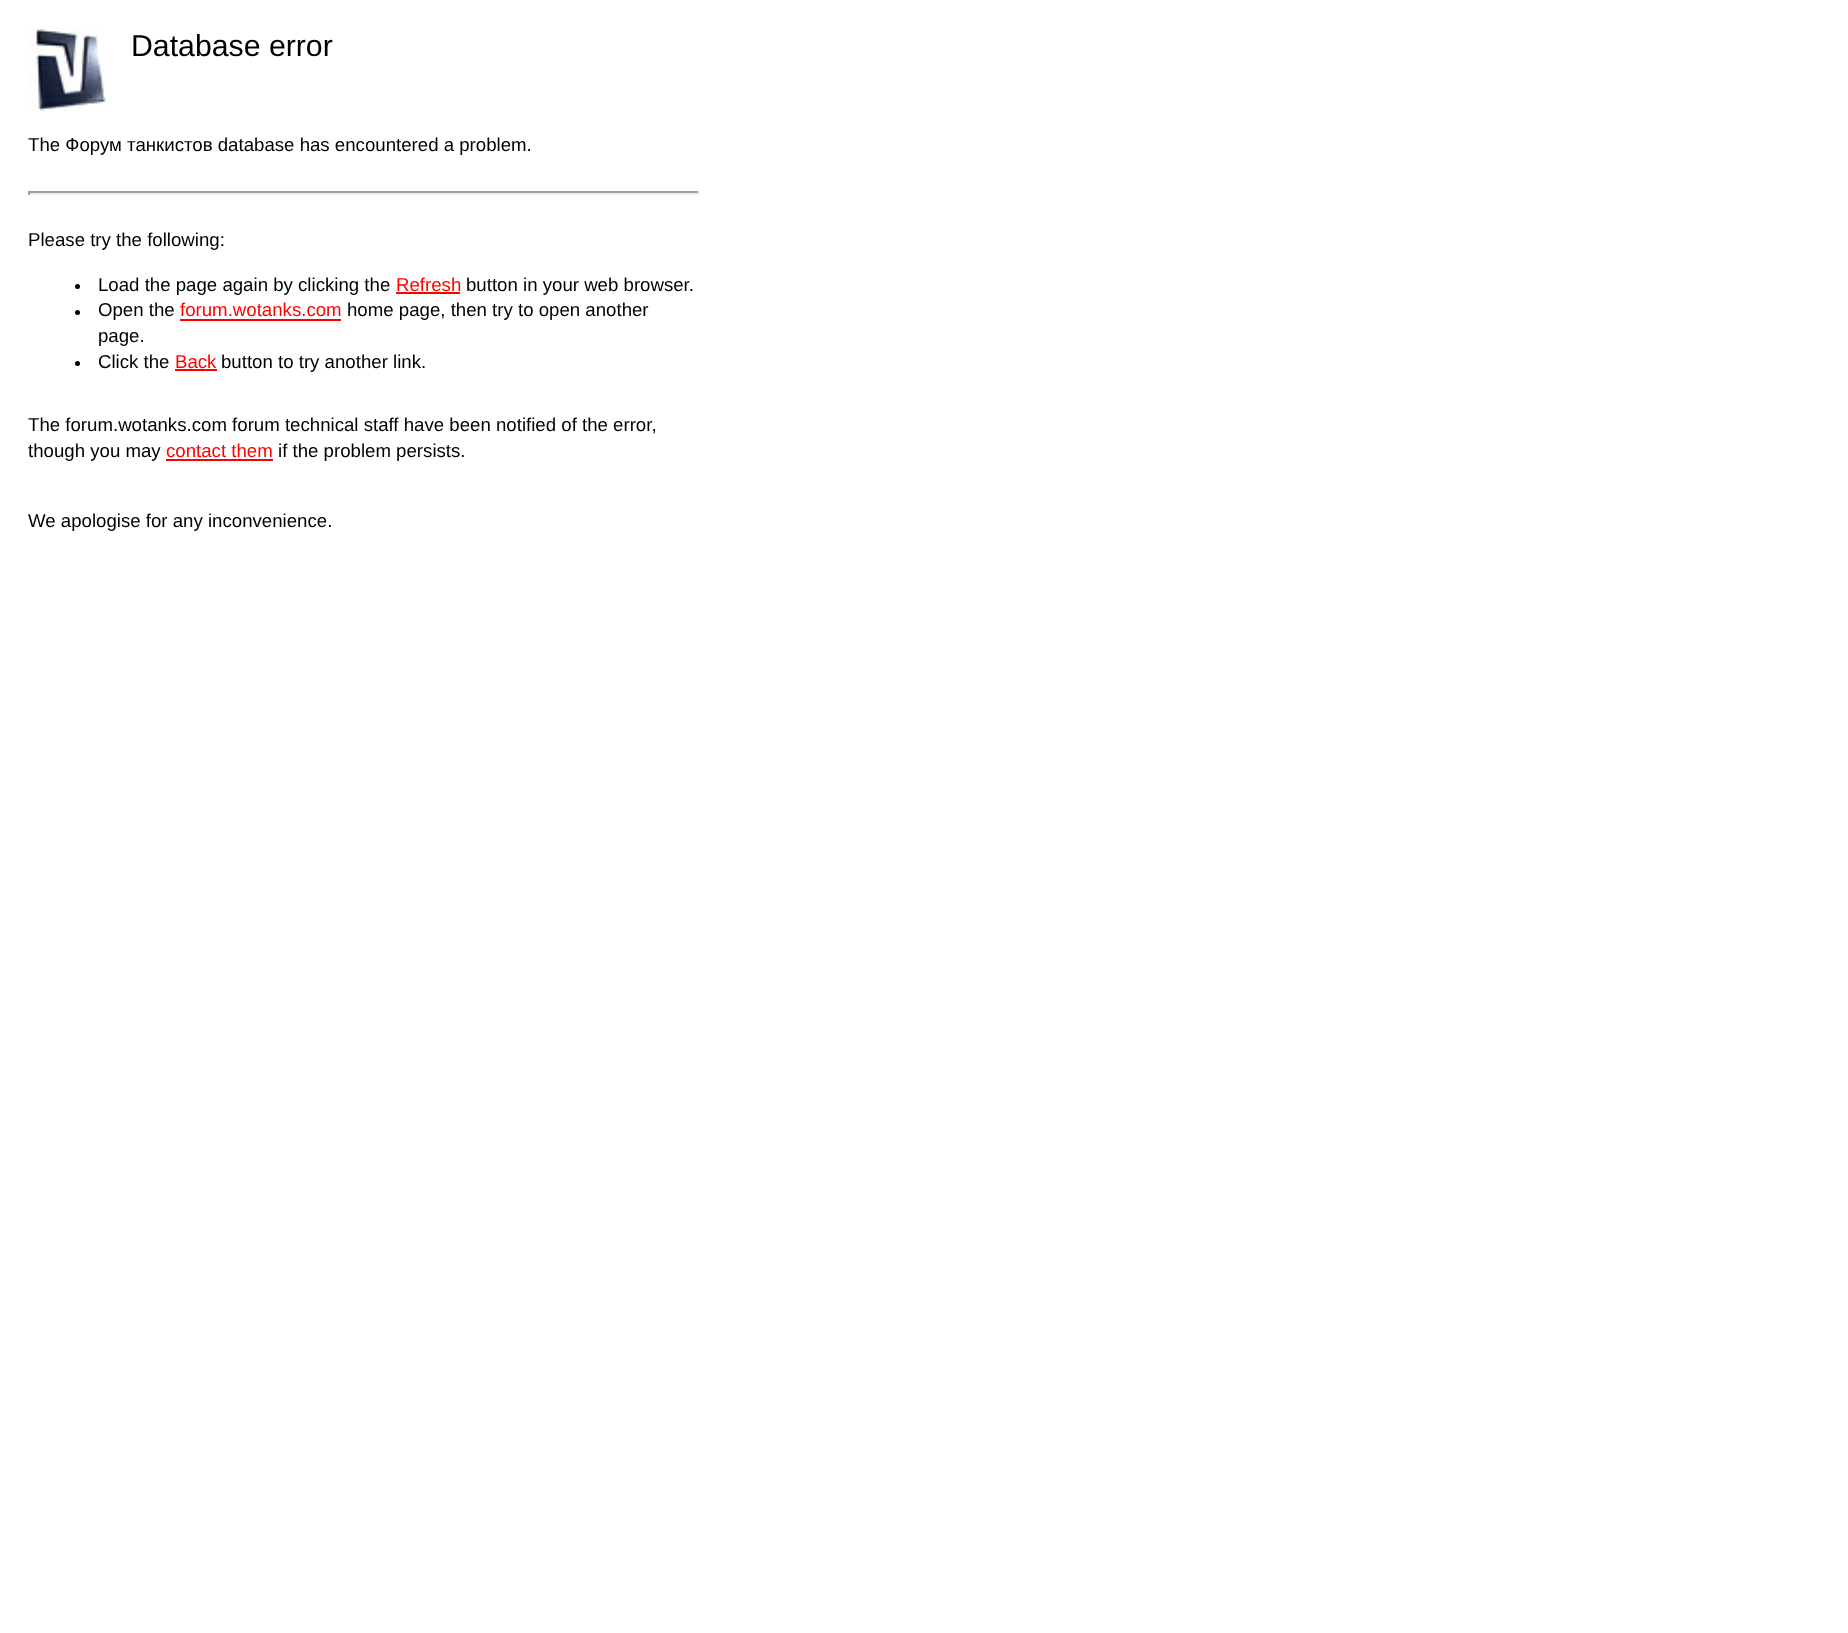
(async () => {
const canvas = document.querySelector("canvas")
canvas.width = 1848
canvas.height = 1633
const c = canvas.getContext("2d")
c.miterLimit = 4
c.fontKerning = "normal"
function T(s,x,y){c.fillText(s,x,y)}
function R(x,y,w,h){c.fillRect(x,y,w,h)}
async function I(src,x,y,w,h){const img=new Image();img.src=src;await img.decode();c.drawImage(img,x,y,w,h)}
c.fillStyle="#fff"
R(0,0,1848,1633)
await I("1.png",28,28,84,84)
c.font="30.25px Liberation Sans"
c.fillStyle="#000"
T("Database error",131,56)
c.font="18.65px Liberation Sans"
T("The Форум танкистов database has encountered a problem.",28,151)
c.fillStyle="#9f9f9f"
R(28,191,672,2)
c.fillStyle="#eee"
R(698,191,2,4)
R(28,193,672,2)
c.fillStyle="#9f9f9f"
R(28,191,2,4)
c.fillStyle="#000"
T("Please try the following:",28,246)
c.beginPath()
c.arc(77.5,286.5,2.5,0,7)
c.fill()
T("Load the page again by clicking the",98,291)
c.fillStyle="#f00"
T("Refresh",396,291)
R(396,292,64,2)
c.fillStyle="#000"
T("button in your web browser.",466,291)
c.beginPath()
c.arc(77.5,312.5,2.5,0,7)
c.fill()
T("Open the",98,316)
c.fillStyle="#f00"
T("forum.wotanks.com",180,316)
R(180,319,161,2)
c.fillStyle="#000"
T("home page, then try to open another",347,316)
T("page.",98,342)
c.beginPath()
c.arc(77.5,363.5,2.5,0,7)
c.fill()
T("Click the",98,368)
c.fillStyle="#f00"
T("Back",175,368)
R(175,369,42,2)
c.fillStyle="#000"
T("button to try another link.",221,368)
T("The forum.wotanks.com forum technical staff have been notified of the error,",28,431)
T("though you may",28,457)
c.fillStyle="#f00"
T("contact them",166,457)
R(166,459,107,2)
c.fillStyle="#000"
T("if the problem persists.",278,457)
T("We apologise for any inconvenience.",28,527)
})()
